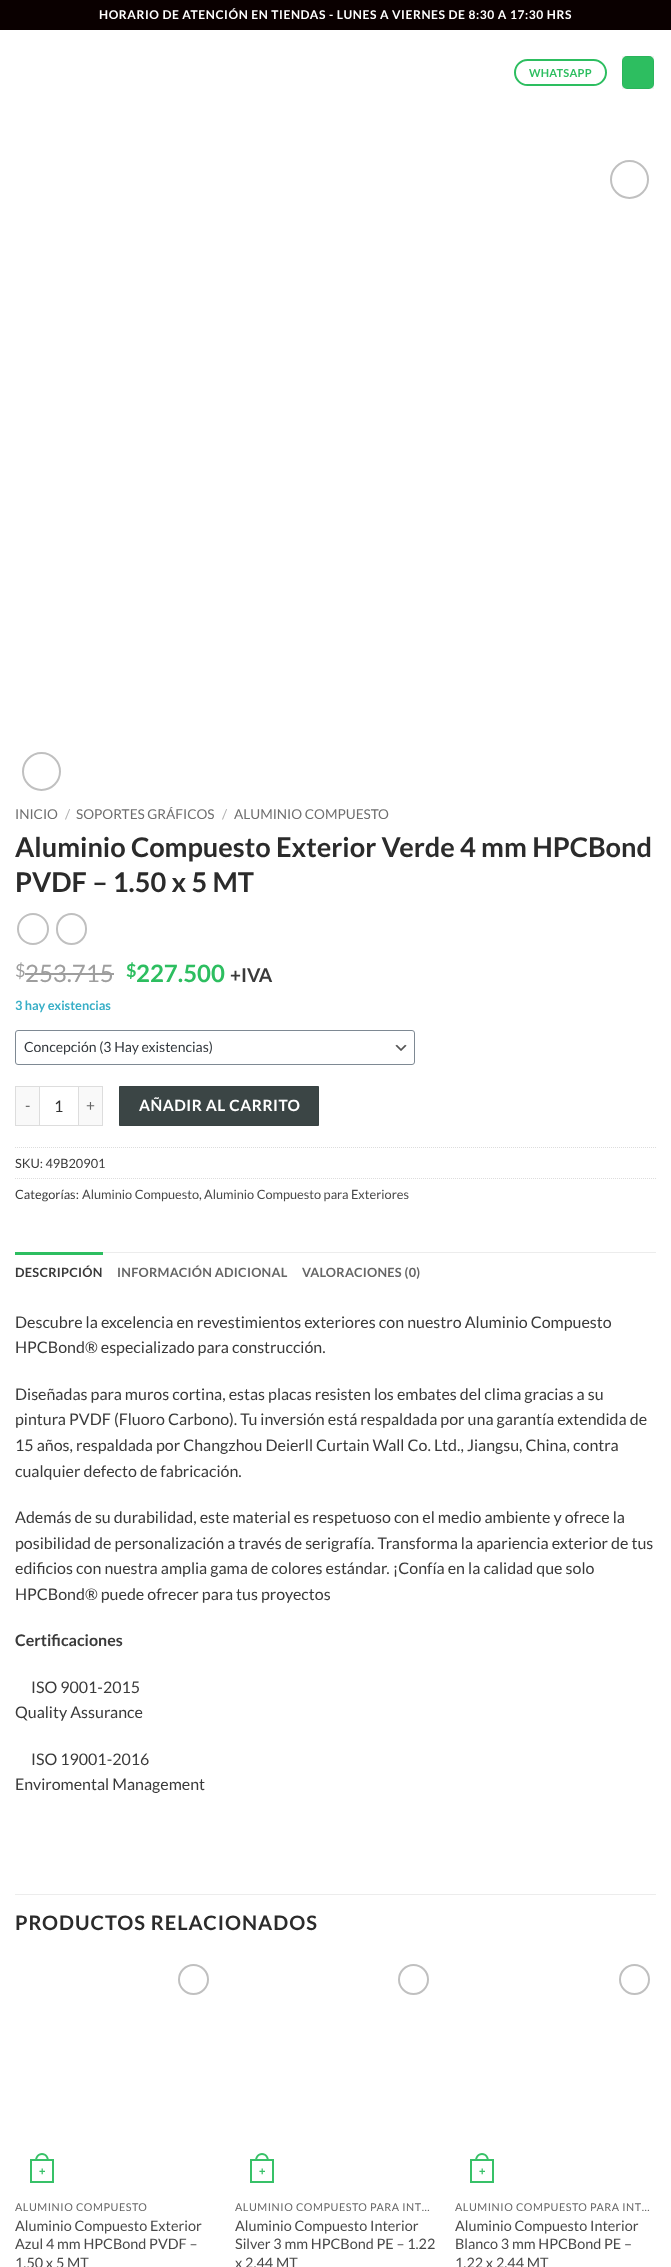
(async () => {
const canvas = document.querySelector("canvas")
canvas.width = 671
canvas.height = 2267
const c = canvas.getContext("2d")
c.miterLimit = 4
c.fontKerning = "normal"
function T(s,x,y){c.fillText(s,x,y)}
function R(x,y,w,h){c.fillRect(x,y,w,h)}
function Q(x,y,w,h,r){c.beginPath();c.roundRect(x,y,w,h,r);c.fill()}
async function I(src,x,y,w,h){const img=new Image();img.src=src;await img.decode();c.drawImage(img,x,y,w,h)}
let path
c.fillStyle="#fff"
R(0,0,671,2267)
c.fillStyle="#0a0000"
R(0,0,671,30)
c.letterSpacing="0.6px"
c.font="bold 12px Lato"
c.fillStyle="#fff"
T("HORARIO DE ATENCIÓN EN TIENDAS - LUNES A VIERNES DE 8:30 A 17:30 HRS",99,19)
c.beginPath()
c.roundRect(515,60,91,25,12.5)
c.strokeStyle="#2dbe60"
c.lineWidth=2
c.stroke()
c.letterSpacing="0.25px"
c.font="bold 11px Lato"
c.fillStyle="#2dbe60"
T("WHATSAPP",529,77)
Q(622,56,32,33,5)
c.strokeStyle="#0000000d"
c.lineWidth=1
c.strokeRect(622.5,56.5,31,32)
c.beginPath()
c.arc(629.5,179.5,18.5,0,7)
c.strokeStyle="#c0c0c0"
c.lineWidth=2
c.stroke()
c.beginPath()
c.arc(41.5,771.5,18.5,0,7)
c.stroke()
c.letterSpacing="0px"
c.font="13.6px Lato"
c.fillStyle="#6e6e6e"
T("INICIO",15,819)
c.fillStyle="#b2b2b2"
T("/",65,819)
c.fillStyle="#6e6e6e"
T("SOPORTES GRÁFICOS",76,819)
c.fillStyle="#b2b2b2"
T("/",222,819)
c.fillStyle="#6e6e6e"
T("ALUMINIO COMPUESTO",234,819)
c.font="bold 27.2px Lato"
c.fillStyle="#2b2b2b"
T("Aluminio Compuesto Exterior Verde 4 mm HPCBond",15,857)
T("PVDF – 1.50 x 5 MT",15,892)
c.beginPath()
c.arc(33,929,15,0,7)
c.stroke()
c.beginPath()
c.roundRect(57,914,29,30,14.5)
c.stroke()
c.font="18px Lato"
c.fillStyle="#9e9e9e"
T("$",15,977)
c.font="24px Lato"
T("253.715",25,982)
R(25,973,89,2)
c.font="bold 18px Lato"
c.fillStyle="#2dbe60"
T("$",126,977)
c.font="bold 24px Lato"
T("227.500",136,982)
c.font="bold 19px Lato"
c.fillStyle="#3a3a3a"
T("+IVA",230,982)
c.font="bold 12.75px Lato"
c.fillStyle="#39afc7"
T("3 hay existencias",15,1010)
await I("1.png",395,1044,12,7)
c.beginPath()
c.roundRect(15.5,1030.5,399,34,2.5)
c.strokeStyle="#7e8993"
c.lineWidth=1
c.stroke()
c.font="14px Lato"
c.fillStyle="#32373c"
T("Concepción (3 Hay existencias)",24,1052)
c.fillStyle="#f9f9f9"
R(16,1087,23,38)
c.fillStyle="#ddd"
R(15,1086,24,1)
R(15,1125,24,1)
R(15,1086,1,40)
c.letterSpacing="0.5px"
c.font="15.5px Lato"
c.fillStyle="#666"
T("-",25,1111)
c.strokeStyle="#ddd"
c.strokeRect(39.5,1086.5,39,39)
c.letterSpacing="0px"
c.font="16px Lato"
c.fillStyle="#333"
T("1",54,1112)
c.fillStyle="#f9f9f9"
R(79,1087,23,38)
c.fillStyle="#ddd"
R(79,1086,24,1)
R(102,1086,1,40)
R(79,1125,24,1)
c.letterSpacing="0.5px"
c.font="15.5px Lato"
c.fillStyle="#666"
T("+",86,1111)
c.fillStyle="#3b4545"
c.beginPath()
c.rect(119.5,1086.5,199,39)
c.fill()
c.strokeStyle="#384242"
c.stroke()
c.font="bold 15.5px Lato"
c.fillStyle="#fff"
T("AÑADIR AL CARRITO",139,1111)
path = new Path2D("M15 1147.5h641")
c.strokeStyle="#ddd"
c.setLineDash([1,1])
c.stroke(path)
c.letterSpacing="0px"
c.font="12.75px Lato"
c.fillStyle="#3a3a3a"
T("SKU: 49B20901",15,1168)
path = new Path2D("M15 1178.5h641")
c.stroke(path)
T("Categorías:",15,1199)
c.fillStyle="#494949"
T("Aluminio Compuesto",82,1199)
c.fillStyle="#3a3a3a"
T(",",199,1199)
c.fillStyle="#494949"
T("Aluminio Compuesto para Exteriores",204,1199)
c.fillStyle="#ececec"
R(103,1252,553,1)
c.fillStyle="#2dbe60"
R(15,1252,88,3)
c.letterSpacing="0.25px"
c.font="bold 12.75px Lato"
c.fillStyle="#3a3a3a"
T("DESCRIPCIÓN",15,1277)
c.fillStyle="#666"
T("INFORMACIÓN ADICIONAL",117,1277)
T("VALORACIONES (0)",302,1277)
c.letterSpacing="0px"
c.font="16px Lato"
c.fillStyle="#3a3a3a"
T("Descubre la excelencia en revestimientos exteriores con nuestro Aluminio Compuesto",15,1328)
T("HPCBond® especializado para construcción.",15,1353)
T("Diseñadas para muros cortina, estas placas resisten los embates del clima gracias a su",15,1400)
T("pintura PVDF (Fluoro Carbono). Tu inversión está respaldada por una garantía extendida de",15,1425)
T("15 años, respaldada por Changzhou Deierll Curtain Wall Co. Ltd., Jiangsu, China, contra",15,1451)
T("cualquier defecto de fabricación.",15,1477)
T("Además de su durabilidad, este material es respetuoso con el medio ambiente y ofrece la",15,1523)
T("posibilidad de personalización a través de serigrafía. Transforma la apariencia exterior de tus",15,1549)
T("edificios con nuestra amplia gama de colores estándar. ¡Confía en la calidad que solo",15,1574)
T("HPCBond® puede ofrecer para tus proyectos",15,1600)
c.font="bold 16px Lato"
T("Certificaciones",15,1646)
c.font="16px Lato"
T("ISO 9001-2015",31,1693)
T("Quality Assurance",15,1718)
T("ISO 19001-2016",31,1765)
T("Enviromental Management",15,1790)
c.fillStyle="#ececec"
R(15,1894,641,1)
c.letterSpacing="1px"
c.font="bold 20px Lato"
c.fillStyle="#2b2b2b"
T("PRODUCTOS RELACIONADOS",15,1930)
c.beginPath()
c.arc(193.5,1979.5,14.5,0,7)
c.strokeStyle="#c0c0c0"
c.lineWidth=2
c.setLineDash([])
c.stroke()
c.strokeStyle="#38c168"
c.strokeRect(31,2160,22,22)
c.fillStyle="#38c168"
path = new Path2D("M42 2153c4.5 0 7 4 7 8h-14c0-4 2.5-8 7-8zm0 2c3.5 0 5 3 5 6h-10c0-3 1.5-6 5-6z")
c.fill(path,"evenodd")
c.letterSpacing="0px"
c.font="bold 11px Liberation Sans"
T("+",39,2175)
c.letterSpacing="0.55px"
c.font="10.75px Lato"
c.fillStyle="#666"
T("ALUMINIO COMPUESTO",15,2211)
c.letterSpacing="0px"
c.font="14.4px Lato"
c.fillStyle="#494949"
T("Aluminio Compuesto Exterior",15,2231)
T("Azul 4 mm HPCBond PVDF –",15,2249)
T("1.50 x 5 MT",15,2268)
c.beginPath()
c.arc(413.5,1979.5,14.5,0,7)
c.strokeStyle="#c0c0c0"
c.stroke()
c.strokeStyle="#38c168"
c.strokeRect(251,2160,22,22)
c.fillStyle="#38c168"
path = new Path2D("M262 2153c4.5 0 7 4 7 8h-14c0-4 2.5-8 7-8zm0 2c3.5 0 5 3 5 6h-10c0-3 1.5-6 5-6z")
c.fill(path,"evenodd")
c.font="bold 11px Liberation Sans"
T("+",259,2175)
c.letterSpacing="0.55px"
c.font="10.75px Lato"
c.fillStyle="#666"
T("ALUMINIO COMPUESTO PARA INT…",235,2211)
c.letterSpacing="0px"
c.font="14.4px Lato"
c.fillStyle="#494949"
T("Aluminio Compuesto Interior",235,2231)
T("Silver 3 mm HPCBond PE – 1.22",235,2249)
T("x 2.44 MT",235,2268)
c.beginPath()
c.arc(634.5,1979.5,14.5,0,7)
c.strokeStyle="#c0c0c0"
c.stroke()
c.strokeStyle="#38c168"
c.strokeRect(471,2160,22,22)
c.fillStyle="#38c168"
path = new Path2D("M482 2153c4.5 0 7 4 7 8h-14c0-4 2.5-8 7-8zm0 2c3.5 0 5 3 5 6h-10c0-3 1.5-6 5-6z")
c.fill(path,"evenodd")
c.font="bold 11px Liberation Sans"
T("+",479,2175)
c.letterSpacing="0.55px"
c.font="10.75px Lato"
c.fillStyle="#666"
T("ALUMINIO COMPUESTO PARA INT…",455,2211)
c.letterSpacing="0px"
c.font="14.4px Lato"
c.fillStyle="#494949"
T("Aluminio Compuesto Interior",455,2231)
T("Blanco 3 mm HPCBond PE –",455,2249)
T("1.22 x 2.44 MT",455,2268)
})()
